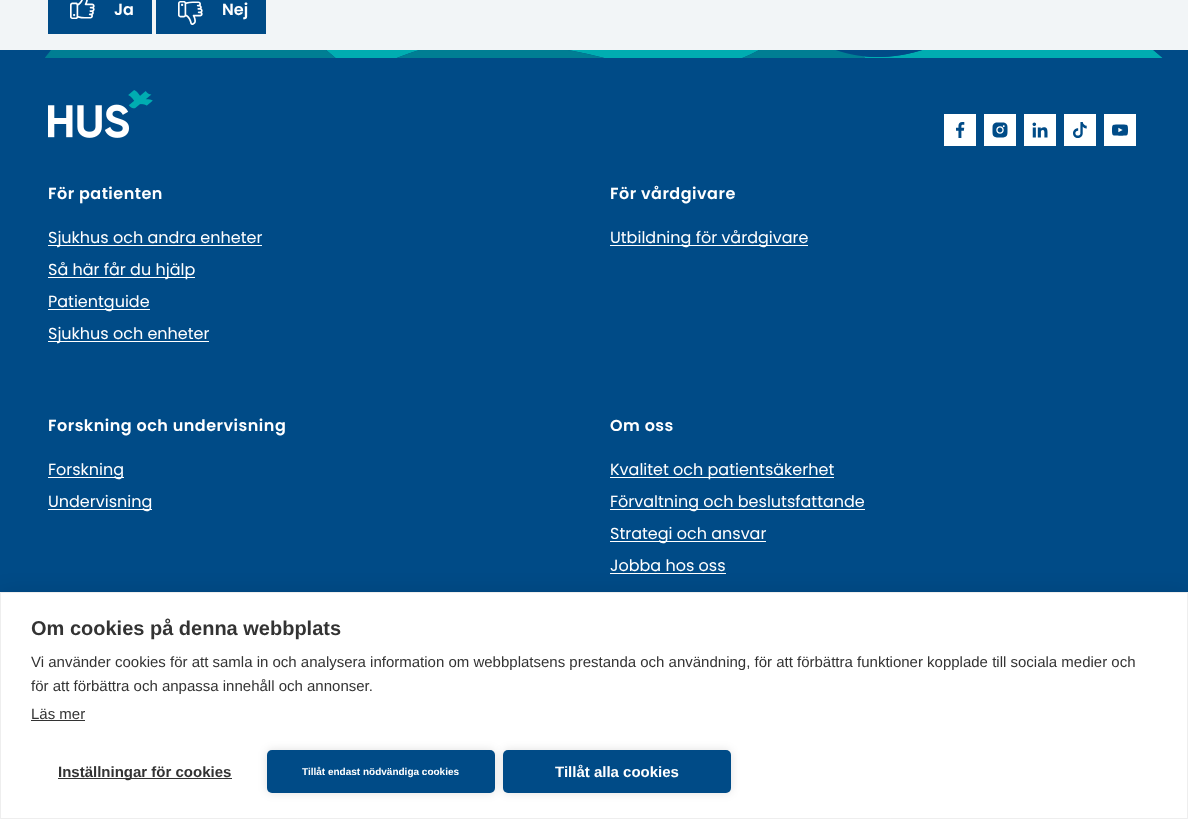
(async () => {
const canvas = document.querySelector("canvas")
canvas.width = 1188
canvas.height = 819
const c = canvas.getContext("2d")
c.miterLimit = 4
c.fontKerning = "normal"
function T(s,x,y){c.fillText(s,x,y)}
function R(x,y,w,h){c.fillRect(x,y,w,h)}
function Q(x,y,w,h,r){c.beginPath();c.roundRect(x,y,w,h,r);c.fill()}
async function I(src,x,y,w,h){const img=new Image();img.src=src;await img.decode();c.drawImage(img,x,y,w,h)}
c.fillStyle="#f2f5f7"
R(0,0,1188,819)
c.fillStyle="#004b87"
R(48,0,104,34)
await I("1.png",70,0,25,19)
c.font="600 16px Poppins"
c.fillStyle="#fff"
T("Ja",114,15)
c.fillStyle="#004b87"
R(156,0,110,34)
await I("2.png",178,1,25,24)
c.fillStyle="#fff"
T("Nej",222,15)
c.fillStyle="#004b87"
R(0,50,1188,542)
await I("3.png",45,50,1118,8)
await I("4.png",48,90,105,48)
c.fillStyle="#fff"
R(944,114,32,32)
await I("5.png",956,122,9,16)
R(984,114,32,32)
await I("6.png",992,122,16,16)
R(1024,114,32,32)
await I("7.png",1032,122,16,16)
R(1064,114,32,32)
await I("8.png",1073,122,14,16)
R(1104,114,32,32)
await I("9.png",1112,124,16,12)
c.letterSpacing="0.5px"
T("För patienten",48,199)
R(48,245,214,1)
c.letterSpacing="0px"
c.font="16px Poppins"
T("Sjukhus och andra enheter",48,243)
R(48,277,147,1)
T("Så här får du hjälp",48,275)
R(48,309,102,1)
T("Patientguide",48,307)
R(48,341,161,1)
T("Sjukhus och enheter",48,339)
c.letterSpacing="0.5px"
c.font="600 16px Poppins"
T("För vårdgivare",610,199)
R(610,245,198,1)
c.letterSpacing="0px"
c.font="16px Poppins"
T("Utbildning för vårdgivare",610,243)
c.letterSpacing="0.5px"
c.font="600 16px Poppins"
T("Forskning och undervisning",48,431)
R(48,477,76,1)
c.letterSpacing="0px"
c.font="16px Poppins"
T("Forskning",48,475)
R(48,509,104,1)
T("Undervisning",48,507)
c.letterSpacing="0.5px"
c.font="600 16px Poppins"
T("Om oss",610,431)
R(610,477,224,1)
c.letterSpacing="0px"
c.font="16px Poppins"
T("Kvalitet och patientsäkerhet",610,475)
R(610,509,255,1)
T("Förvaltning och beslutsfattande",610,507)
R(610,541,156,1)
T("Strategi och ansvar",610,539)
T("Jobba hos oss",610,571)
R(610,573,116,1)
c.fillStyle="#0000001a"
c.filter="blur(10px)"
c.beginPath()
c.rect(0,592,1188,227)
c.fill()
c.filter="none"
c.fillStyle="#fff"
c.beginPath()
c.rect(.5,592.5,1187,226)
c.fill()
c.strokeStyle="#eee"
c.stroke()
c.font="bold 20px Liberation Sans"
c.fillStyle="#333"
T("Om cookies på denna webbplats",31,635)
c.font="15px Liberation Sans"
T("Vi använder cookies för att samla in och analysera information om webbplatsens prestanda och användning, för att förbättra funktioner kopplade till sociala medier och",31,667)
T("för att förbättra och anpassa innehåll och annonser.",31,691)
T("Läs mer",31,719)
R(31,720,54,1)
R(58,778,174,1)
c.font="bold 15px Liberation Sans"
T("Inställningar för cookies",58,777)
c.fillStyle="#0000001f"
c.filter="blur(5px)"
c.beginPath()
c.roundRect(267,750,228,43,5)
c.fill()
c.filter="none"
c.fillStyle="#004b87"
Q(267,750,228,43,5)
c.font="bold 10px Liberation Sans"
c.fillStyle="#fff"
T("Tillåt endast nödvändiga cookies",302,775)
c.fillStyle="#0000001f"
c.filter="blur(5px)"
c.beginPath()
c.roundRect(503,750,228,43,5)
c.fill()
c.filter="none"
c.fillStyle="#004b87"
Q(503,750,228,43,5)
c.font="bold 15px Liberation Sans"
c.fillStyle="#fff"
T("Tillåt alla cookies",555,777)
})()
